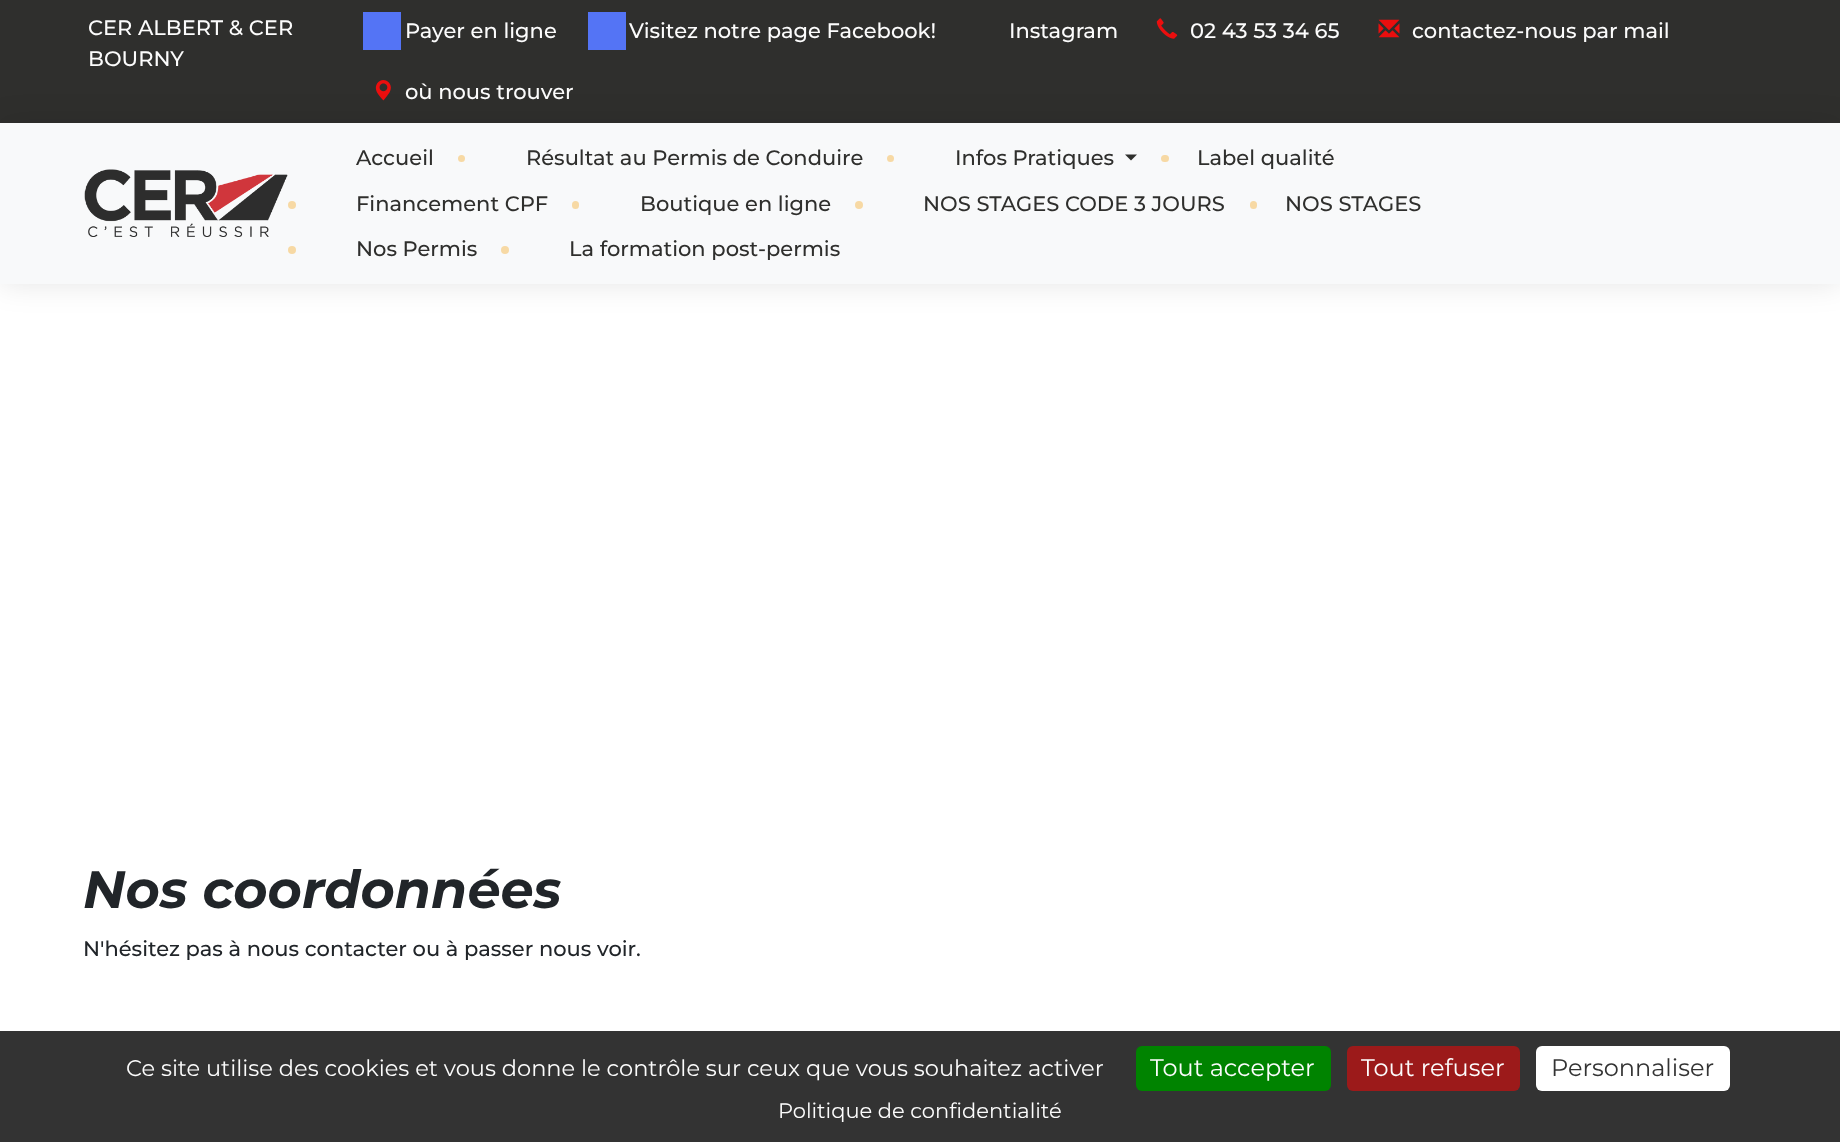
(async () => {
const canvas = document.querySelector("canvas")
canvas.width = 1840
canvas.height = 1142
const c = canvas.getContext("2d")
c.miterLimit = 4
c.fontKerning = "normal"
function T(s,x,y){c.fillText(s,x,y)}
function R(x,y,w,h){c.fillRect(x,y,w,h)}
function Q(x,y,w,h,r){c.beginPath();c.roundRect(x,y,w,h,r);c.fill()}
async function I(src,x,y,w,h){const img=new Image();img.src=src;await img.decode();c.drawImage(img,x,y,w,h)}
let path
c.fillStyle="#fff"
R(0,0,1840,1142)
c.fillStyle="#2f2f2d"
R(0,0,1840,123)
c.font="500 21px Montserrat"
c.fillStyle="#fcfcfc"
T("CER ALBERT & CER",88,35)
T("BOURNY",88,66)
c.fillStyle="#5474f5"
R(363,12,38,38)
c.fillStyle="#fcfcfc"
T("Payer en ligne",405,38)
c.fillStyle="#5474f5"
R(588,12,38,38)
c.fillStyle="#fcfcfc"
T("Visitez notre page Facebook!",629,38)
T("Instagram",1009,38)
await I("1.png",1156,18,22,21)
T("02 43 53 34 65",1190,38)
await I("2.png",1378,19,22,19)
T("contactez-nous par mail",1412,38)
await I("3.png",375,80,16,21)
T("où nous trouver",405,99)
c.fillStyle="#0000001a"
c.filter="blur(15px)"
c.beginPath()
c.rect(0,123,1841,161)
c.fill()
c.filter="none"
c.fillStyle="#f8f9fa"
R(0,123,1840,161)
await I("4.png",84,169,204,68)
c.fillStyle="#2f2f2d"
T("Accueil",356,165)
c.fillStyle="#f7d9a4"
c.beginPath()
c.arc(461.5,158.5,3.5,0,7)
c.fill()
c.fillStyle="#2f2f2d"
T("Résultat au Permis de Conduire",526,165)
c.fillStyle="#f7d9a4"
c.beginPath()
c.arc(890.5,158.5,3.5,0,7)
c.fill()
c.fillStyle="#2f2f2d"
T("Infos Pratiques",955,165)
path = new Path2D("M1125 154.5h12l-6 6z")
c.fill(path)
c.fillStyle="#f7d9a4"
Q(1161,155,8,7,3.5)
c.fillStyle="#2f2f2d"
T("Label qualité",1197,165)
c.fillStyle="#f7d9a4"
c.beginPath()
c.arc(292,205,4,0,7)
c.fill()
c.fillStyle="#2f2f2d"
T("Financement CPF",356,211)
c.fillStyle="#f7d9a4"
Q(572,201,7,8,3.5)
c.fillStyle="#2f2f2d"
T("Boutique en ligne",640,211)
c.fillStyle="#f7d9a4"
c.beginPath()
c.arc(859,205,4,0,7)
c.fill()
c.fillStyle="#2f2f2d"
T("NOS STAGES CODE 3 JOURS",923,211)
c.fillStyle="#f7d9a4"
Q(1250,201,7,8,3.5)
c.fillStyle="#2f2f2d"
T("NOS STAGES",1285,211)
c.fillStyle="#f7d9a4"
c.beginPath()
c.arc(292,250,4,0,7)
c.fill()
c.fillStyle="#2f2f2d"
T("Nos Permis",356,256)
c.fillStyle="#f7d9a4"
c.beginPath()
c.arc(505,250,4,0,7)
c.fill()
c.fillStyle="#2f2f2d"
T("La formation post-permis",569,256)
c.font="italic bold 52.5px Montserrat"
c.fillStyle="#212529"
T("Nos coordonnées",83,908)
c.font="500 21px Montserrat"
T("N'hésitez pas à nous contacter ou à passer nous voir.",83,956)
c.fillStyle="#333"
R(0,1031,1840,111)
c.font="22.5px Montserrat"
c.fillStyle="#fcfcfc"
T("Ce site utilise des cookies et vous donne le contrôle sur ceux que vous souhaitez activer",126,1076)
c.fillStyle="#008300"
Q(1136,1046,195,45,6)
c.font="24px Montserrat"
c.fillStyle="#fcfcfc"
T("Tout accepter",1150,1076)
c.fillStyle="#9c1a1a"
Q(1347,1046,173,45,6)
c.fillStyle="#fcfcfc"
T("Tout refuser",1361,1076)
c.fillStyle="#fff"
Q(1536,1046,194,45,6)
c.fillStyle="#333"
T("Personnaliser",1551,1076)
c.font="21px Montserrat"
c.fillStyle="#fcfcfc"
T("Politique de confidentialité",778,1118)
})()
